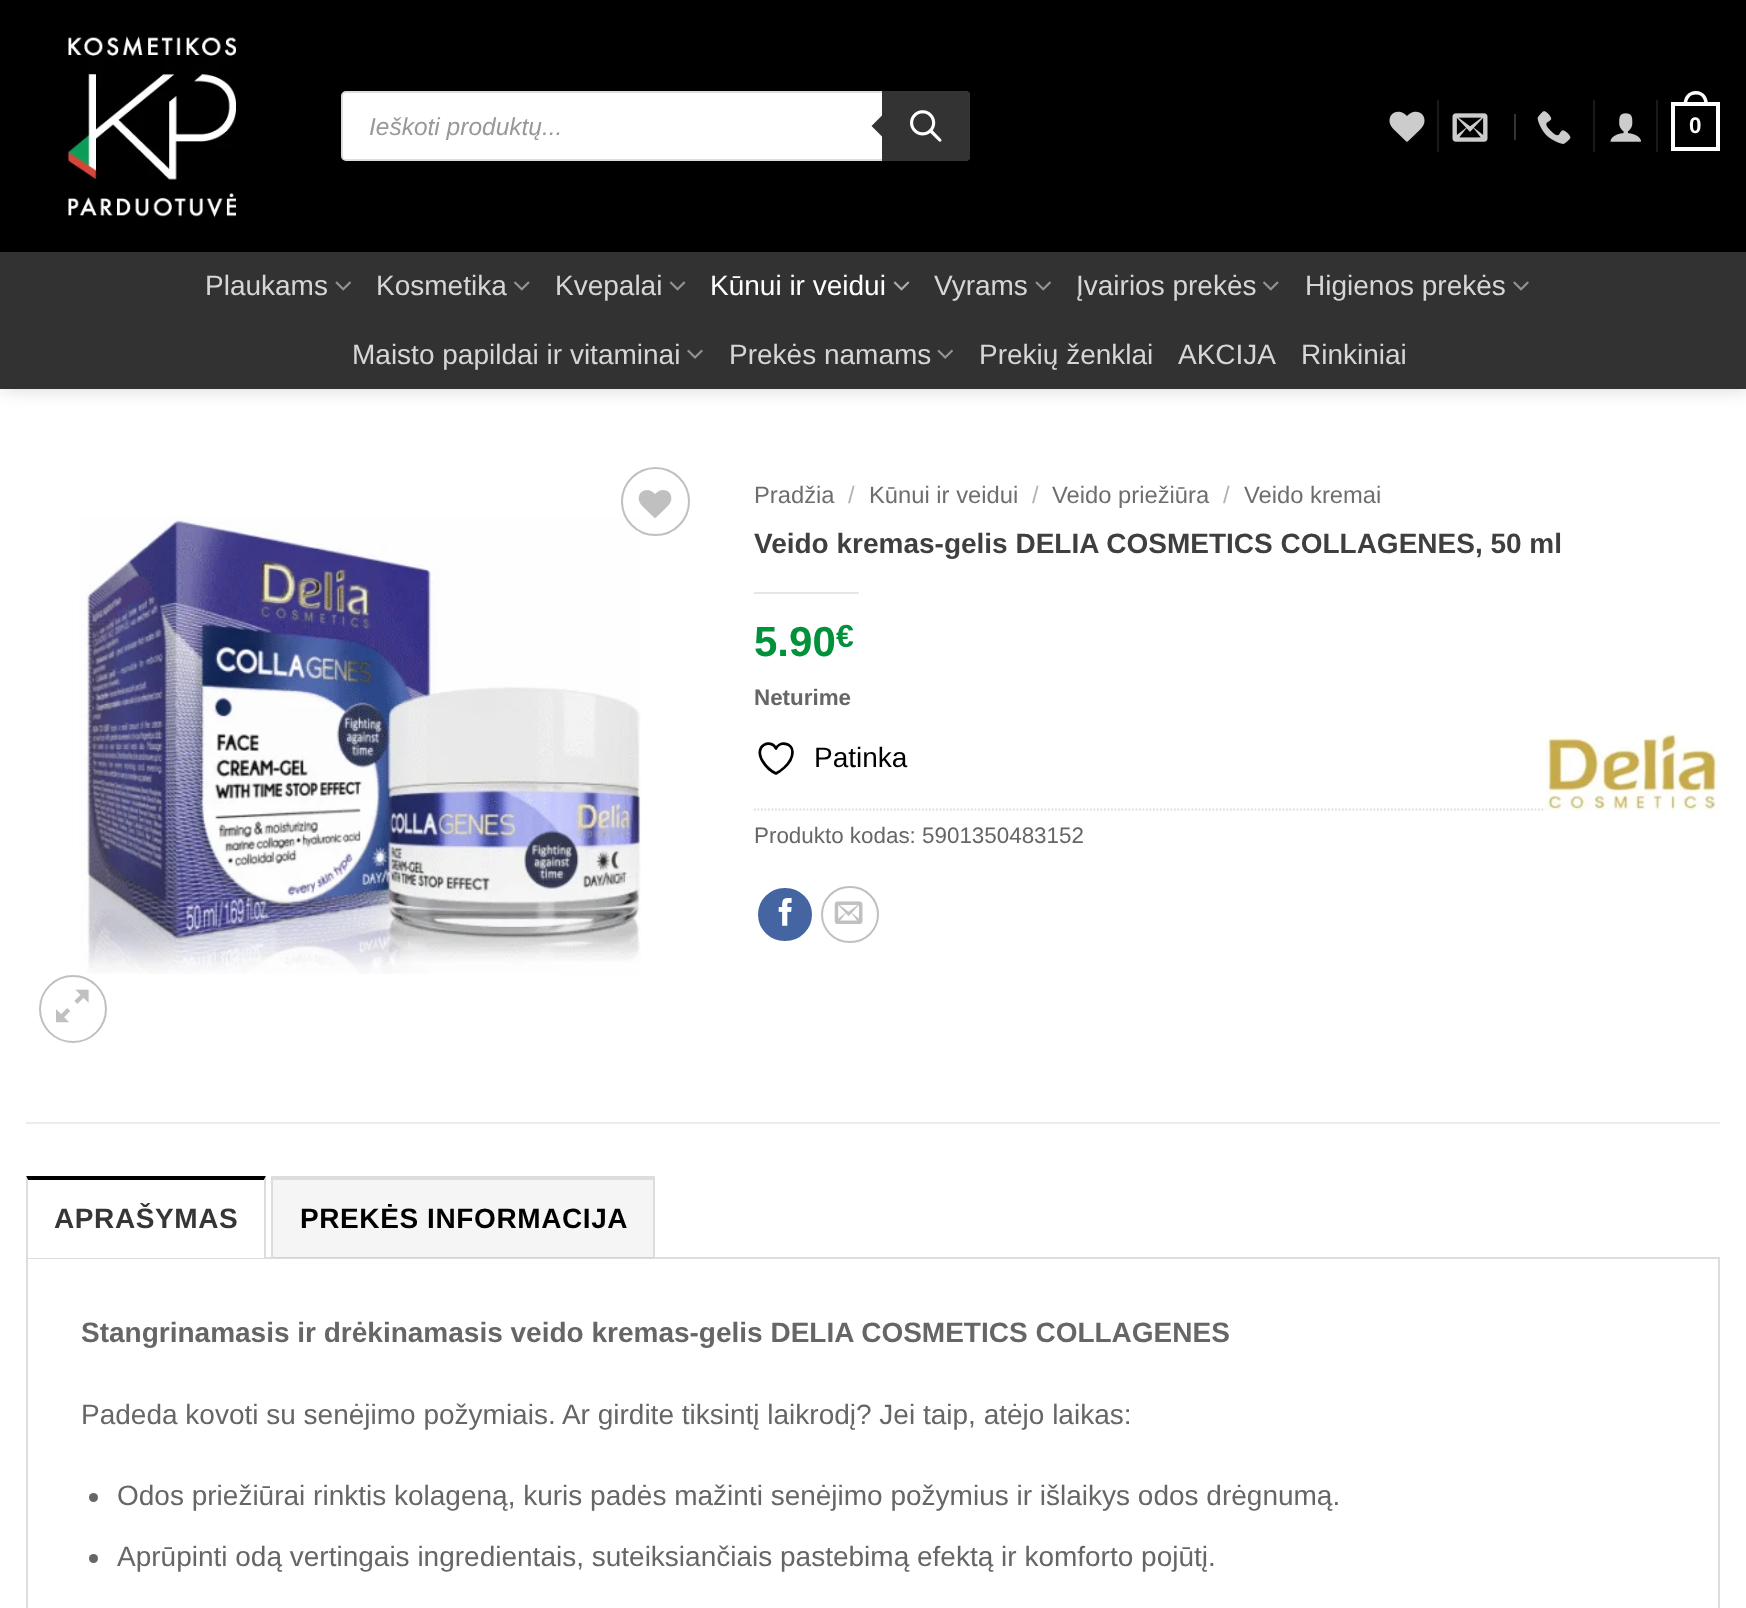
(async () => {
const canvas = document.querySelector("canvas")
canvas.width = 1746
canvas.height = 1608
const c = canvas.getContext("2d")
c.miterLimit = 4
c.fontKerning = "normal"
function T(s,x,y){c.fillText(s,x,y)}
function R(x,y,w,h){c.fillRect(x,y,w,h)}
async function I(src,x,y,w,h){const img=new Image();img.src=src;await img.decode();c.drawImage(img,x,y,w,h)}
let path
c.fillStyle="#fff"
R(0,0,1746,1608)
c.fillStyle="#00000026"
c.filter="blur(9px)"
c.beginPath()
c.rect(2,2,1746,388)
c.fill()
c.filter="none"
c.fillStyle="#000"
R(0,0,1746,252)
await I("1.png",66,36,172,183)
c.fillStyle="#fff"
c.beginPath()
c.roundRect(342,92,627,68,4)
c.fill()
c.strokeStyle="#ddd"
c.lineWidth=2
c.stroke()
c.font="italic 24.5px Liberation Sans"
c.fillStyle="#999"
T("Ieškoti produktų...",369,135)
c.fillStyle="#333"
c.beginPath()
c.roundRect(882,91,88,70,[0,4,4,0])
c.fill()
path = new Path2D("M885.5 112v28l-14-14z")
c.fill(path)
await I("2.png",910,110,32,32)
await I("3.png",1389,111,36,31)
c.fillStyle="#1a1a1a"
R(1437,100,2,52)
await I("4.png",1452,113,36,29)
c.fillStyle="#333"
R(1514,114,2,26)
await I("5.png",1537,111,34,33)
c.fillStyle="#1a1a1a"
R(1593,100,2,52)
await I("6.png",1610,113,31,29)
R(1656,100,2,52)
c.strokeStyle="#fff"
c.lineWidth=4
c.strokeRect(1673,104,45,45)
c.fillStyle="#fff"
path = new Path2D("M1696 91c8 0 12 6.5 12 14h-24.5c0-7.5 4-14 12.5-14zm0 3.5c6 0 8.5 5 8.5 10.5h-17.5c0-5.5 2.5-10.5 9-10.5z")
c.fill(path,"evenodd")
c.font="bold 22.4px Liberation Sans"
T("0",1689,133)
c.fillStyle="#323232"
R(0,252,1746,137)
c.font="28px Liberation Sans"
c.fillStyle="#d6d6d6"
T("Plaukams",205,295)
await I("7.png",335,281,16,10)
T("Kosmetika",376,295)
await I("8.png",514,281,16,10)
T("Kvepalai",555,295)
await I("9.png",669,281,17,10)
c.fillStyle="#fff"
T("Kūnui ir veidui",710,295)
await I("10.png",893,281,17,10)
c.fillStyle="#d6d6d6"
T("Vyrams",934,295)
await I("7.png",1035,281,16,10)
T("Įvairios prekės",1076,295)
await I("8.png",1263,281,16,10)
T("Higienos prekės",1305,295)
await I("11.png",1513,281,16,10)
T("Maisto papildai ir vitaminai",352,364)
await I("12.png",687,349,16,10)
T("Prekės namams",729,364)
await I("13.png",937,349,16,10)
T("Prekių ženklai",979,364)
T("AKCIJA",1178,364)
T("Rinkiniai",1301,364)
await I("15.png",79,517,562,457)
c.beginPath()
c.arc(655.5,501.5,33.5,0,7)
c.strokeStyle="#c0c0c0"
c.lineWidth=2
c.stroke()
await I("14.png",638,490,34,28)
c.beginPath()
c.arc(73,1009,33,0,7)
c.stroke()
await I("16.png",56,989,33,34)
c.font="23.75px Liberation Sans"
c.fillStyle="#6e6e6e"
T("Pradžia",754,503)
c.fillStyle="#b2b2b2"
T("/",848,503)
c.fillStyle="#6e6e6e"
T("Kūnui ir veidui",869,503)
c.fillStyle="#b2b2b2"
T("/",1032,503)
c.fillStyle="#6e6e6e"
T("Veido priežiūra",1052,503)
c.fillStyle="#b2b2b2"
T("/",1223,503)
c.fillStyle="#6e6e6e"
T("Veido kremai",1244,503)
c.font="bold 28px Liberation Sans"
c.fillStyle="#3f3f3f"
T("Veido kremas-gelis DELIA COSMETICS COLLAGENES, 50 ml",754,553)
c.fillStyle="#e6e6e6"
R(754,592,105,2)
c.font="bold 42px Liberation Sans"
c.fillStyle="#01913b"
T("5.90",754,656)
c.font="bold 32px Liberation Sans"
T("€",836,647)
c.font="bold 22.4px Liberation Sans"
c.fillStyle="#666"
T("Neturime",754,705)
c.font="28px Liberation Sans"
c.fillStyle="#000"
T("Patinka",814,767)
path = new Path2D("M792.5 752c0-9-13-11.5-16.5-3.5c-4.5-10-23-4-13.5 12.5c3 5 8 10 13.5 12.5c0 0 16.5-8.5 16.5-21.5z")
c.strokeStyle="#000"
c.lineWidth=2.7
c.lineCap="round"
c.lineJoin="round"
c.stroke(path)
path = new Path2D("M754 809.5h966")
c.strokeStyle="#ddd"
c.lineWidth=1.8
c.lineCap="butt"
c.lineJoin="miter"
c.setLineDash([1.75,1.75])
c.stroke(path)
await I("17.png",1545,733,175,78)
c.font="22.4px Liberation Sans"
c.fillStyle="#666"
T("Produkto kodas: 5901350483152",754,843)
c.fillStyle="#4565a2"
c.beginPath()
c.roundRect(757,887,56,55,27.5)
c.fill()
c.strokeStyle="#fff"
c.lineWidth=2
c.setLineDash([])
c.stroke()
await I("18.png",778,898,14,28)
c.beginPath()
c.roundRect(822,887,56,55,27.5)
c.strokeStyle="#c0c0c0"
c.stroke()
await I("19.png",834,901,29,23)
c.fillStyle="#ececec"
R(26,1122,1694,2)
c.strokeStyle="#ddd"
c.strokeRect(27,1258,1692,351)
c.fillStyle="#fff"
R(26,1257,240,1)
c.fillStyle="#000"
path = new Path2D("M26 1176h240l-2 4h-236z")
c.fill(path)
c.fillStyle="#ddd"
path = new Path2D("M266 1176v82h-2v-78z")
c.fill(path)
path = new Path2D("M26 1258v-82l2 4v78z")
c.fill(path)
c.letterSpacing="0.6px"
c.font="bold 28px Liberation Sans"
c.fillStyle="#363636"
T("APRAŠYMAS",54,1228)
c.fillStyle="#0000000a"
R(273,1180,380,78)
c.fillStyle="#ddd"
R(271,1176,384,4)
R(653,1176,2,82)
R(271,1176,2,82)
c.fillStyle="#000"
T("PREKĖS INFORMACIJA",300,1228)
c.letterSpacing="0px"
c.fillStyle="#666"
T("Stangrinamasis ir drėkinamasis veido kremas-gelis DELIA COSMETICS COLLAGENES",81,1342)
c.font="28px Liberation Sans"
T("Padeda kovoti su senėjimo požymiais. Ar girdite tiksintį laikrodį? Jei taip, atėjo laikas:",81,1424)
c.beginPath()
c.arc(93.5,1497.5,4.5,0,7)
c.fill()
T("Odos priežiūrai rinktis kolageną, kuris padės mažinti senėjimo požymius ir išlaikys odos drėgnumą.",117,1505)
c.beginPath()
c.arc(93.5,1558.5,4.5,0,7)
c.fill()
T("Aprūpinti odą vertingais ingredientais, suteiksiančiais pastebimą efektą ir komforto pojūtį.",117,1566)
})()
